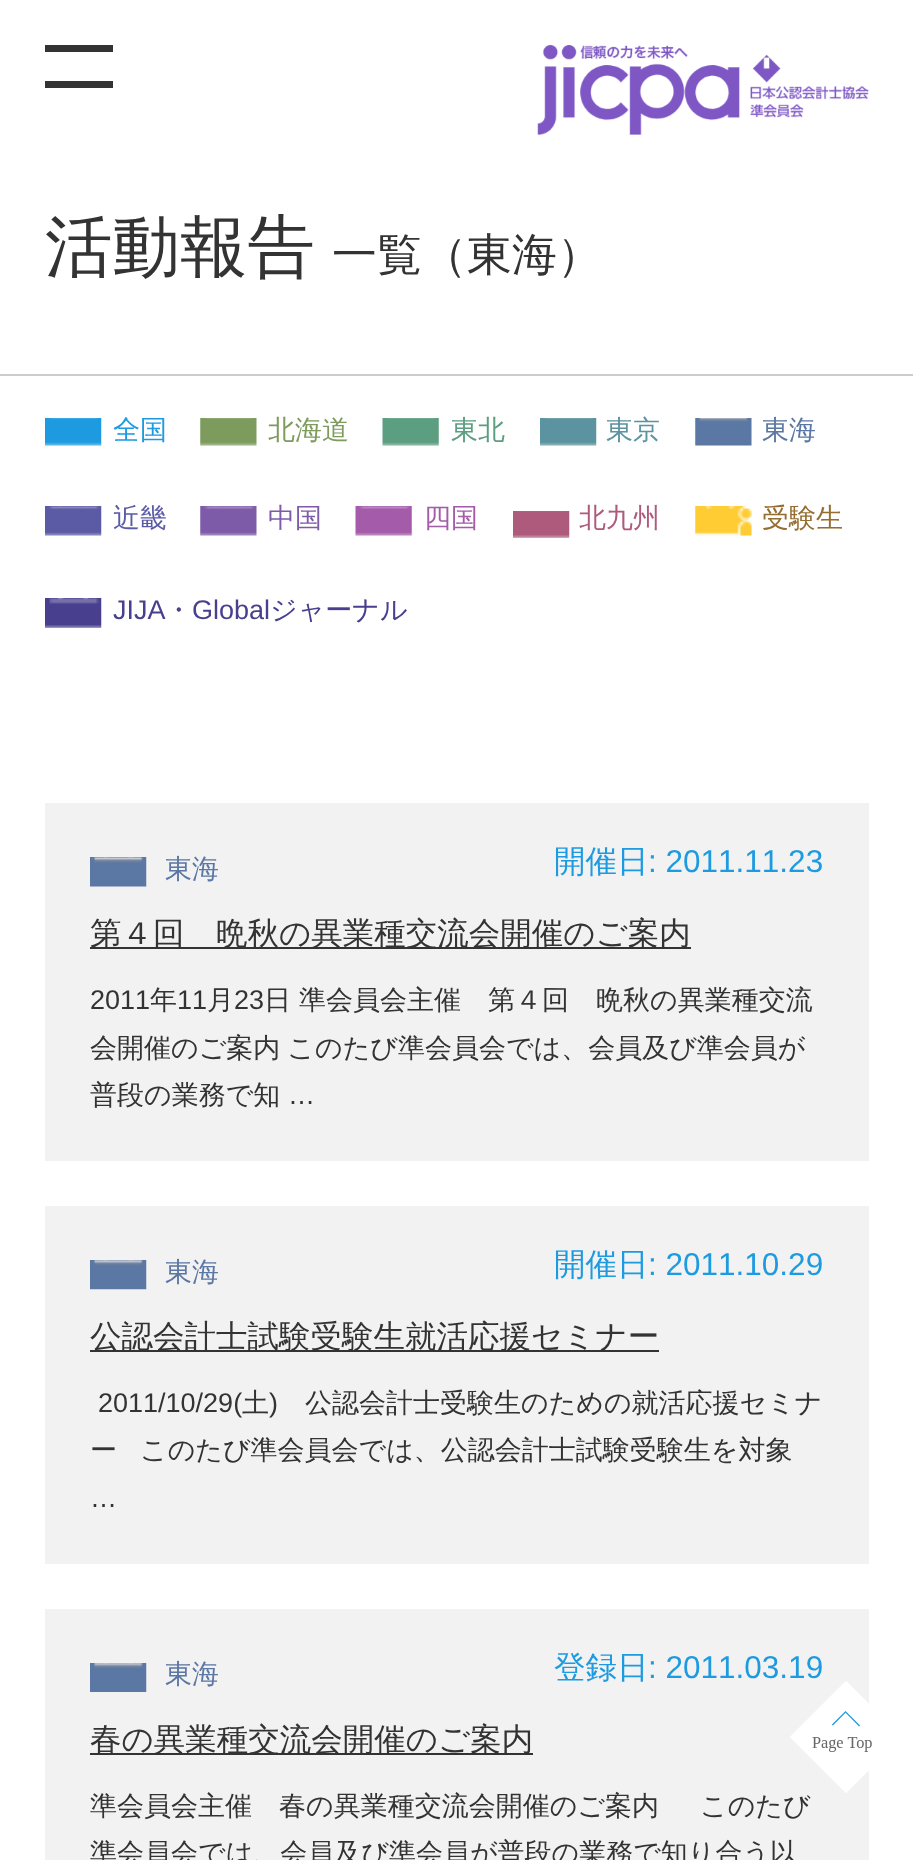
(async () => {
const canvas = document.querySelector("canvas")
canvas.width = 913
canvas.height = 1860
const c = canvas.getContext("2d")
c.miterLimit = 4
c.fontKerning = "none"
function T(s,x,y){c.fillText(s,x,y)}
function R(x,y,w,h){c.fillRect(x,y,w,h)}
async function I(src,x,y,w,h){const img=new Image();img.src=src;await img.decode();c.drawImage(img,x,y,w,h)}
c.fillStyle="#fff"
R(0,0,913,1860)
c.fillStyle="#333"
R(45,45,68,7)
R(45,81,68,7)
await I("1.png",537,45,332,90)
c.fillStyle="#ccc"
R(0,374,913,2)
c.font="500 67.5px WenQuanYi Zen Hei"
c.fillStyle="#333"
T("活動報告",45,270)
c.font="500 45px WenQuanYi Zen Hei"
T("一覧（東海）",332,270)
await I("2.png",45,418,57,28)
c.font="500 27px WenQuanYi Zen Hei"
c.fillStyle="#1e9be0"
T("全国",113,439)
await I("3.png",200,418,57,28)
c.fillStyle="#7c9b5c"
T("北海道",268,439)
await I("4.png",382,418,57,28)
c.fillStyle="#5c9e80"
T("東北",451,439)
await I("5.png",540,418,57,28)
c.fillStyle="#5c93a0"
T("東京",606,439)
await I("6.png",695,418,57,28)
c.fillStyle="#5b77a3"
T("東海",762,439)
await I("7.png",45,506,57,30)
c.fillStyle="#5b5ba5"
T("近畿",113,527)
await I("8.png",200,506,57,30)
c.fillStyle="#7e5ba8"
T("中国",268,527)
await I("9.png",355,506,57,30)
c.fillStyle="#a45baa"
T("四国",424,527)
await I("10.png",513,511,57,27)
c.fillStyle="#ad5a7c"
T("北九州",579,527)
await I("11.png",695,506,57,30)
c.fillStyle="#956d30"
T("受験生",762,527)
await I("12.png",45,598,57,30)
c.font="27px Liberation Sans"
c.fillStyle="#48408e"
T("JIJA",113,619)
c.font="500 27px WenQuanYi Zen Hei"
T("・",165,619)
c.font="27px Liberation Sans"
T("Global",192,619)
c.font="500 27px WenQuanYi Zen Hei"
T("ジャーナル",270,619)
c.fillStyle="#f2f2f2"
R(45,803,824,358)
await I("13.png",90,857,57,30)
c.fillStyle="#5b77a3"
T("東海",165,878)
c.font="500 31.5px WenQuanYi Zen Hei"
c.fillStyle="#1e9be0"
T("開催日",554,872)
c.font="31.5px Liberation Sans"
T(": 2011.11.23",648,872)
c.fillStyle="#333"
R(90,947,601,2)
c.font="500 31.5px WenQuanYi Zen Hei"
T("第４回　晩秋の異業種交流会開催のご案内",90,944)
c.font="27px Liberation Sans"
T("2011",90,1009)
c.font="500 27px WenQuanYi Zen Hei"
T("年",150,1009)
c.font="27px Liberation Sans"
T("11",177,1009)
c.font="500 27px WenQuanYi Zen Hei"
T("月",207,1009)
c.font="27px Liberation Sans"
T("23",234,1009)
c.font="500 27px WenQuanYi Zen Hei"
T("日",264,1009)
T("準会員会主催　第４回　晩秋の異業種交流",299,1009)
c.wordSpacing="-1px"
T("会開催のご案内 このたび準会員会では、会員及び準会員が",90,1057)
c.wordSpacing="0px"
T("普段の業務で知",90,1104)
c.font="27px Liberation Sans"
T("…",288,1104)
c.fillStyle="#f2f2f2"
R(45,1206,824,358)
await I("14.png",90,1260,57,30)
c.font="500 27px WenQuanYi Zen Hei"
c.fillStyle="#5b77a3"
T("東海",165,1281)
c.font="500 31.5px WenQuanYi Zen Hei"
c.fillStyle="#1e9be0"
T("開催日",554,1275)
c.font="31.5px Liberation Sans"
T(": 2011.10.29",648,1275)
c.fillStyle="#333"
R(90,1350,569,2)
c.font="500 31.5px WenQuanYi Zen Hei"
T("公認会計士試験受験生就活応援セミナー",90,1347)
c.font="27px Liberation Sans"
T("2011/10/29(",98,1412)
c.font="500 27px WenQuanYi Zen Hei"
T("土",242,1412)
c.font="27px Liberation Sans"
T(")",269,1412)
c.font="500 27px WenQuanYi Zen Hei"
T("公認会計士受験生のための就活応援セミナ",305,1412)
T("ー",90,1459)
T("このたび準会員会では、公認会計士試験受験生を対象",140,1459)
c.font="27px Liberation Sans"
T("…",90,1507)
c.fillStyle="#f2f2f2"
R(45,1609,824,251)
await I("15.png",90,1663,57,29)
c.font="500 27px WenQuanYi Zen Hei"
c.fillStyle="#5b77a3"
T("東海",165,1683)
c.font="500 31.5px WenQuanYi Zen Hei"
c.fillStyle="#1e9be0"
T("登録日",554,1678)
c.font="31.5px Liberation Sans"
T(": 2011.03.19",648,1678)
c.fillStyle="#333"
R(90,1753,443,2)
c.font="500 31.5px WenQuanYi Zen Hei"
T("春の異業種交流会開催のご案内",90,1750)
c.wordSpacing="-1px"
c.font="500 27px WenQuanYi Zen Hei"
T("準会員会主催　春の異業種交流会開催のご案内 　 このたび",90,1815)
c.wordSpacing="0px"
T("準会員会では、会員及び準会員が普段の業務で知り合う以",90,1862)
await I("16.png",790,1681,82,112)
})()
